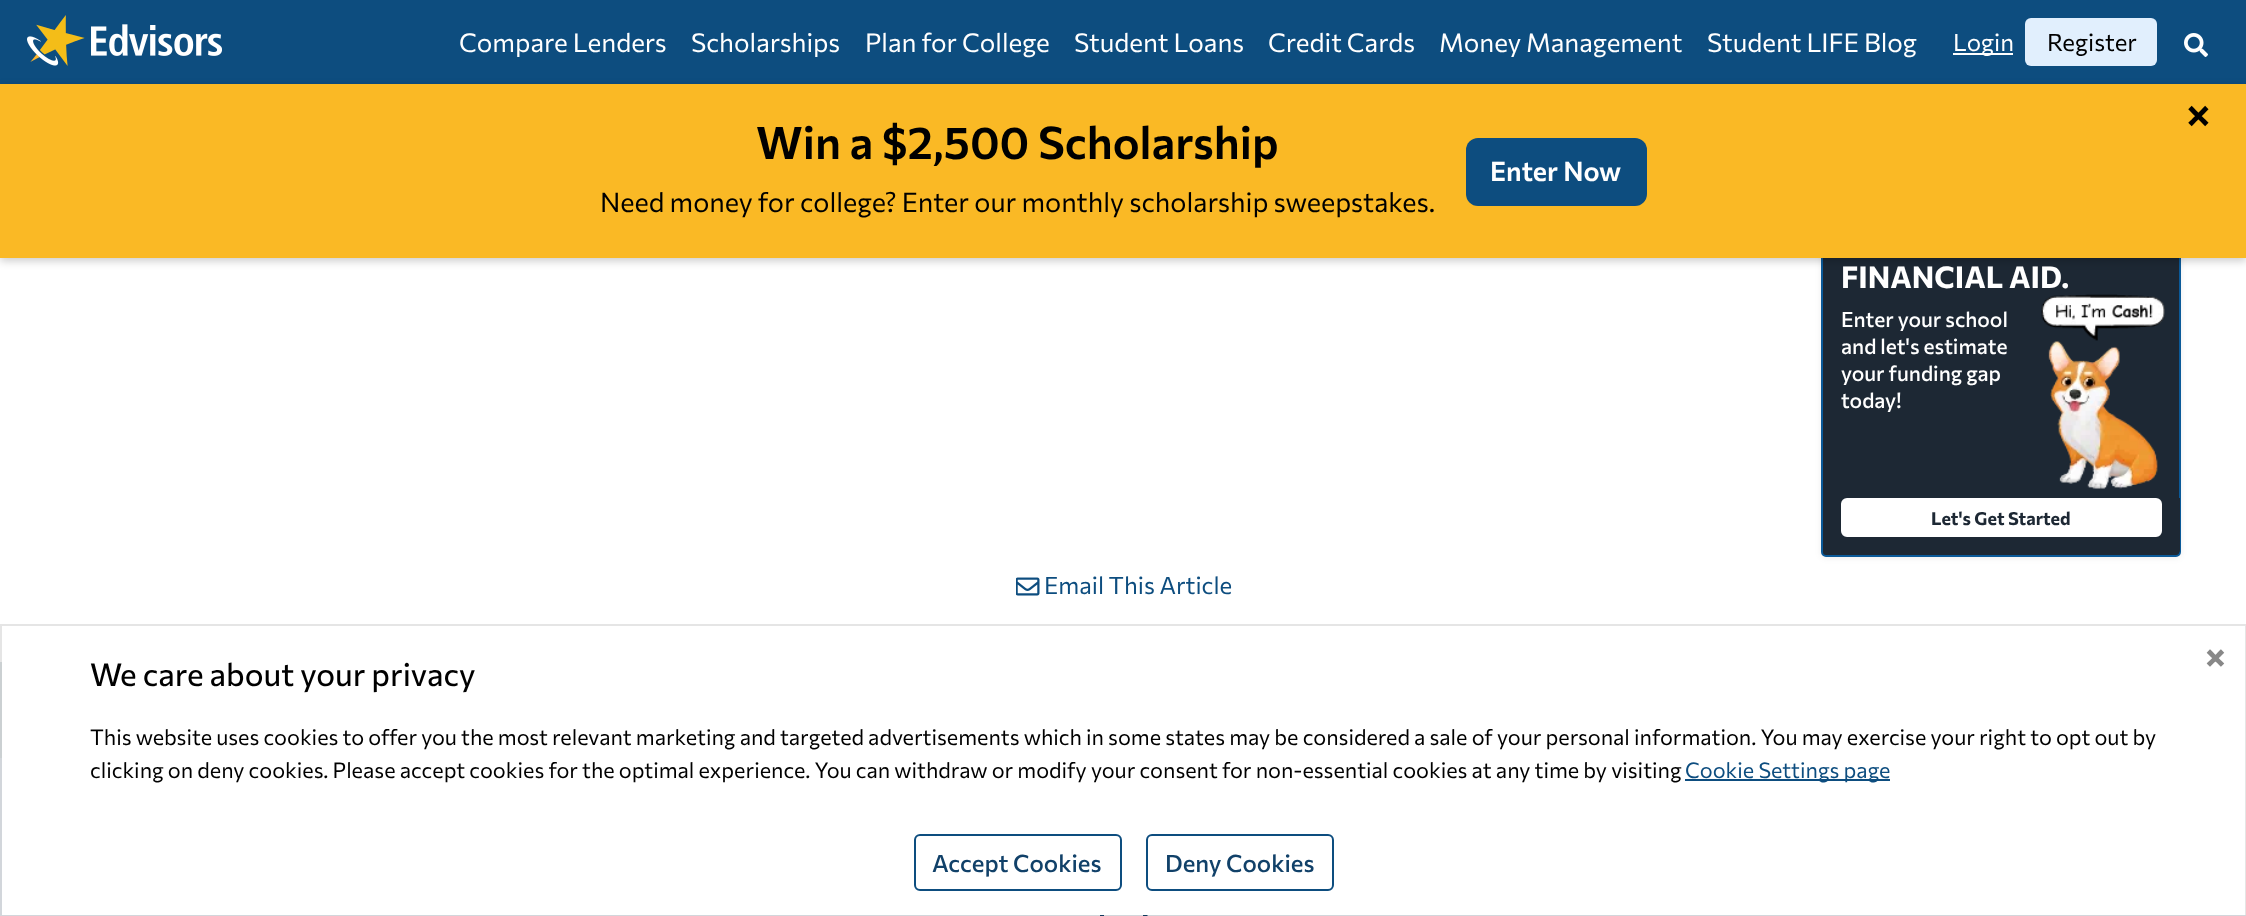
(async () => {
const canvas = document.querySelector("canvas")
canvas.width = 2246
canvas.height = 916
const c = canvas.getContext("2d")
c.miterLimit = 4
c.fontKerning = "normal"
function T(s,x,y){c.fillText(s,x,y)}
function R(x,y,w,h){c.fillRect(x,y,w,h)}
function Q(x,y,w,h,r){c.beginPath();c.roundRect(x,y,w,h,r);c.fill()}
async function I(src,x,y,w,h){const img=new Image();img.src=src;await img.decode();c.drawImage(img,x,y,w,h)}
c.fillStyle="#fff"
R(0,0,2246,916)
c.fillStyle="#0d4d7f"
R(0,0,2246,84)
await I("1.png",27,15,195,51)
c.font="italic 26px Commissioner"
c.fillStyle="#fff"
T("Compare Lenders",459,52)
T("Scholarships",691,52)
T("Plan for College",865,52)
T("Student Loans",1074,52)
T("Credit Cards",1268,52)
T("Money Management",1439,52)
T("Student LIFE Blog",1707,52)
R(1953,53,60,2)
c.font="italic 24px Commissioner"
T("Login",1953,51)
c.fillStyle="#e1effd"
Q(2025,18,132,48,6)
c.fillStyle="#000"
T("Register",2047,51)
await I("2.png",2184,33,24,24)
c.fillStyle="#00000012"
c.filter="blur(3px)"
c.beginPath()
c.roundRect(1821,213,360,345,5)
c.fill()
c.filter="none"
c.fillStyle="#1d2834"
c.beginPath()
c.roundRect(1822,213,358,343,4)
c.fill()
c.strokeStyle="#0b5a99"
c.lineWidth=2
c.stroke()
c.fillStyle="#00000033"
c.filter="blur(4px)"
c.beginPath()
c.rect(0,87,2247,174)
c.fill()
c.filter="none"
c.fillStyle="#fab925"
R(0,84,2246,174)
c.font="italic 600 43px Commissioner"
c.fillStyle="#000"
T("×",2186,129)
c.font="italic 600 45px Commissioner"
T("Win a $2,500 Scholarship",756,159)
c.font="italic 27px Commissioner"
T("Need money for college? Enter our monthly scholarship sweepstakes.",600,212)
c.fillStyle="#0d4d7f"
Q(1466,138,181,68,12)
c.font="italic 600 27px Commissioner"
c.fillStyle="#fff"
T("Enter Now",1490,181)
c.font="italic bold 30px Commissioner"
T("FINANCIAL AID.",1841,288)
c.font="italic 500 21px Commissioner"
T("Enter your school",1841,327)
T("and let's estimate",1841,354)
T("your funding gap",1841,381)
T("today!",1841,408)
await I("3.png",2041,294,124,195)
c.fillStyle="#1d2834"
c.beginPath()
c.roundRect(1823,498,357,57,[0,0,5,5])
c.fill()
c.fillStyle="#fff"
c.beginPath()
c.roundRect(1842,499,319,37,5)
c.fill()
c.strokeStyle="#fff"
c.stroke()
c.font="italic bold 18px Commissioner"
c.fillStyle="#1d2834"
T("Let's Get Started",1931,525)
await I("4.png",1016,577,24,19)
c.font="italic 24px Commissioner"
c.fillStyle="#0d4d7f"
T("Email This Article",1044,594)
c.fillStyle="#e3e8ea"
R(0,662,2,96)
c.fillStyle="#eaeff4"
R(0,758,2246,158)
c.fillStyle="#fff"
R(2,758,2244,157)
await I("5.png",1100,915,48,1)
c.strokeStyle="#0000001a"
c.strokeRect(1,625,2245,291)
c.font="italic bold 36px Commissioner"
c.fillStyle="#888"
T("×",2205,669)
c.font="italic 31.5px 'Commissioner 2'"
c.fillStyle="#000"
T("We care about your privacy",90,686)
c.font="italic 21.6px Commissioner"
T("This website uses cookies to offer you the most relevant marketing and targeted advertisements which in some states may be considered a sale of your personal information. You may exercise your right to opt out by",90,745)
T("clicking on deny cookies. Please accept cookies for the optimal experience. You can withdraw or modify your consent for non-essential cookies at any time by visiting",90,778)
c.fillStyle="#0d4d7f"
R(1685,779,205,2)
T("Cookie Settings page",1685,778)
c.beginPath()
c.roundRect(915,835,206,55,5)
c.strokeStyle="#0d4d7f"
c.stroke()
c.font="italic 500 24px Commissioner"
c.fillStyle="#114169"
T("Accept Cookies",932,872)
c.beginPath()
c.roundRect(1147,835,186,55,5)
c.stroke()
T("Deny Cookies",1165,872)
})()
